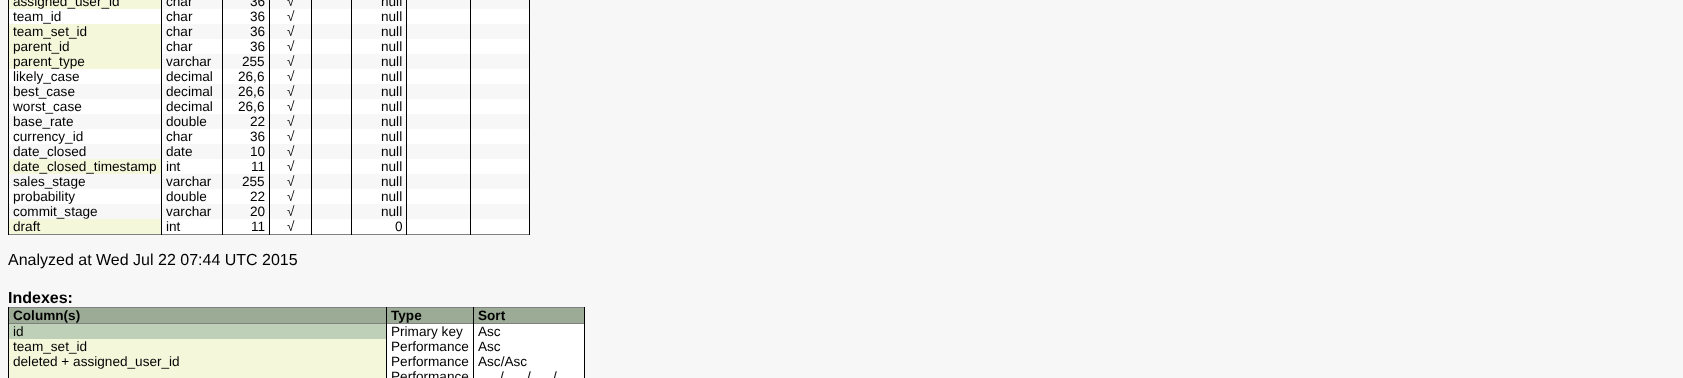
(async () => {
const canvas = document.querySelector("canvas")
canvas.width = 1683
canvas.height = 378
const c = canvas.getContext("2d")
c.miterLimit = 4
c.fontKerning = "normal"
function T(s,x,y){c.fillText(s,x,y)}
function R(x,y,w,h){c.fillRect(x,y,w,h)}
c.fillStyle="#f7f7f7"
R(0,0,1683,378)
c.fillStyle="#808080"
R(8,234,522,1)
c.fillStyle="#000"
R(8,0,1,235)
c.fillStyle="#f4f7da"
R(9,0,152,9)
c.font="13.6px Liberation Sans"
c.fillStyle="#000"
T("assigned_user_id",13,6)
T("char",166,6)
T("36",250,6)
T("√",287,6)
T("null",381,6)
c.fillStyle="#fff"
R(9,9,152,15)
c.fillStyle="#000"
T("team_id",13,21)
c.fillStyle="#fff"
R(162,9,60,15)
c.fillStyle="#000"
T("char",166,21)
c.fillStyle="#fff"
R(223,9,46,15)
c.fillStyle="#000"
T("36",250,21)
c.fillStyle="#fff"
R(270,9,41,15)
c.fillStyle="#000"
T("√",287,21)
c.fillStyle="#fff"
R(312,9,39,15)
R(352,9,54,15)
c.fillStyle="#000"
T("null",381,21)
c.fillStyle="#fff"
R(407,9,63,15)
R(471,9,58,15)
c.fillStyle="#f4f7da"
R(9,24,152,45)
c.fillStyle="#000"
T("team_set_id",13,36)
T("char",166,36)
T("36",250,36)
T("√",287,36)
T("null",381,36)
T("parent_id",13,51)
c.fillStyle="#fff"
R(162,39,60,15)
c.fillStyle="#000"
T("char",166,51)
c.fillStyle="#fff"
R(223,39,46,15)
c.fillStyle="#000"
T("36",250,51)
c.fillStyle="#fff"
R(270,39,41,15)
c.fillStyle="#000"
T("√",287,51)
c.fillStyle="#fff"
R(312,39,39,15)
R(352,39,54,15)
c.fillStyle="#000"
T("null",381,51)
c.fillStyle="#fff"
R(407,39,63,15)
R(471,39,58,15)
c.fillStyle="#000"
T("parent_type",13,66)
T("varchar",166,66)
T("255",242,66)
T("√",287,66)
T("null",381,66)
c.fillStyle="#fff"
R(9,69,152,15)
c.fillStyle="#000"
T("likely_case",13,81)
c.fillStyle="#fff"
R(162,69,60,15)
c.fillStyle="#000"
T("decimal",166,81)
c.fillStyle="#fff"
R(223,69,46,15)
c.fillStyle="#000"
T("26,6",238,81)
c.fillStyle="#fff"
R(270,69,41,15)
c.fillStyle="#000"
T("√",287,81)
c.fillStyle="#fff"
R(312,69,39,15)
R(352,69,54,15)
c.fillStyle="#000"
T("null",381,81)
c.fillStyle="#fff"
R(407,69,63,15)
R(471,69,58,15)
c.fillStyle="#000"
T("best_case",13,96)
T("decimal",166,96)
T("26,6",238,96)
T("√",287,96)
T("null",381,96)
c.fillStyle="#fff"
R(9,99,152,15)
c.fillStyle="#000"
T("worst_case",13,111)
c.fillStyle="#fff"
R(162,99,60,15)
c.fillStyle="#000"
T("decimal",166,111)
c.fillStyle="#fff"
R(223,99,46,15)
c.fillStyle="#000"
T("26,6",238,111)
c.fillStyle="#fff"
R(270,99,41,15)
c.fillStyle="#000"
T("√",287,111)
c.fillStyle="#fff"
R(312,99,39,15)
R(352,99,54,15)
c.fillStyle="#000"
T("null",381,111)
c.fillStyle="#fff"
R(407,99,63,15)
R(471,99,58,15)
c.fillStyle="#000"
T("base_rate",13,126)
T("double",166,126)
T("22",250,126)
T("√",287,126)
T("null",381,126)
c.fillStyle="#fff"
R(9,129,152,15)
c.fillStyle="#000"
T("currency_id",13,141)
c.fillStyle="#fff"
R(162,129,60,15)
c.fillStyle="#000"
T("char",166,141)
c.fillStyle="#fff"
R(223,129,46,15)
c.fillStyle="#000"
T("36",250,141)
c.fillStyle="#fff"
R(270,129,41,15)
c.fillStyle="#000"
T("√",287,141)
c.fillStyle="#fff"
R(312,129,39,15)
R(352,129,54,15)
c.fillStyle="#000"
T("null",381,141)
c.fillStyle="#fff"
R(407,129,63,15)
R(471,129,58,15)
c.fillStyle="#000"
T("date_closed",13,156)
T("date",166,156)
T("10",250,156)
T("√",287,156)
T("null",381,156)
c.fillStyle="#f4f7da"
R(9,159,152,15)
c.fillStyle="#000"
T("date_closed_timestamp",13,171)
c.fillStyle="#fff"
R(162,159,60,15)
c.fillStyle="#000"
T("int",166,171)
c.fillStyle="#fff"
R(223,159,46,15)
c.fillStyle="#000"
T("11",251,171)
c.fillStyle="#fff"
R(270,159,41,15)
c.fillStyle="#000"
T("√",287,171)
c.fillStyle="#fff"
R(312,159,39,15)
R(352,159,54,15)
c.fillStyle="#000"
T("null",381,171)
c.fillStyle="#fff"
R(407,159,63,15)
R(471,159,58,15)
c.fillStyle="#000"
T("sales_stage",13,186)
T("varchar",166,186)
T("255",242,186)
T("√",287,186)
T("null",381,186)
c.fillStyle="#fff"
R(9,189,152,15)
c.fillStyle="#000"
T("probability",13,201)
c.fillStyle="#fff"
R(162,189,60,15)
c.fillStyle="#000"
T("double",166,201)
c.fillStyle="#fff"
R(223,189,46,15)
c.fillStyle="#000"
T("22",250,201)
c.fillStyle="#fff"
R(270,189,41,15)
c.fillStyle="#000"
T("√",287,201)
c.fillStyle="#fff"
R(312,189,39,15)
R(352,189,54,15)
c.fillStyle="#000"
T("null",381,201)
c.fillStyle="#fff"
R(407,189,63,15)
R(471,189,58,15)
c.fillStyle="#000"
T("commit_stage",13,216)
T("varchar",166,216)
T("20",250,216)
T("√",287,216)
T("null",381,216)
c.fillStyle="#f4f7da"
R(9,219,152,15)
c.fillStyle="#000"
T("draft",13,231)
c.fillStyle="#fff"
R(162,219,60,15)
c.fillStyle="#000"
T("int",166,231)
c.fillStyle="#fff"
R(223,219,46,15)
c.fillStyle="#000"
T("11",251,231)
c.fillStyle="#fff"
R(270,219,41,15)
c.fillStyle="#000"
T("√",287,231)
c.fillStyle="#fff"
R(312,219,39,15)
R(352,219,54,15)
c.fillStyle="#000"
T("0",395,231)
c.fillStyle="#fff"
R(407,219,63,15)
R(471,219,58,15)
c.fillStyle="#000"
R(161,0,1,235)
R(222,0,1,235)
R(269,0,1,235)
R(311,0,1,235)
R(351,0,1,235)
R(406,0,1,235)
R(529,0,1,235)
R(470,0,1,235)
c.font="16px Liberation Sans"
T("Analyzed at Wed Jul 22 07:44 UTC 2015",8,265)
c.font="bold 16px Liberation Sans"
T("Indexes:",8,303)
c.fillStyle="#808080"
R(8,307,577,1)
R(8,323,577,1)
c.fillStyle="#000"
R(8,307,1,71)
R(386,307,1,71)
R(584,307,1,71)
R(473,307,1,71)
c.fillStyle="#9bab96"
R(9,308,377,15)
c.font="bold 13.6px Liberation Sans"
c.fillStyle="#000"
T("Column(s)",13,320)
c.fillStyle="#9bab96"
R(387,308,86,15)
c.fillStyle="#000"
T("Type",391,320)
c.fillStyle="#9bab96"
R(474,308,110,15)
c.fillStyle="#000"
T("Sort",478,320)
c.fillStyle="#bed1b8"
R(9,324,377,15)
c.font="13.6px Liberation Sans"
c.fillStyle="#000"
T("id",13,336)
c.fillStyle="#fff"
R(387,324,86,54)
c.fillStyle="#000"
T("Primary key",391,336)
c.fillStyle="#fff"
R(474,324,110,54)
c.fillStyle="#000"
T("Asc",478,336)
c.fillStyle="#f4f7da"
R(9,339,377,39)
c.fillStyle="#000"
T("team_set_id",13,351)
T("Performance",391,351)
T("Asc",478,351)
T("deleted + assigned_user_id",13,366)
T("Performance",391,366)
T("Asc/Asc",478,366)
T("Performance",391,381)
T("/",500,381)
T("/",527,381)
T("/",553,381)
})()
